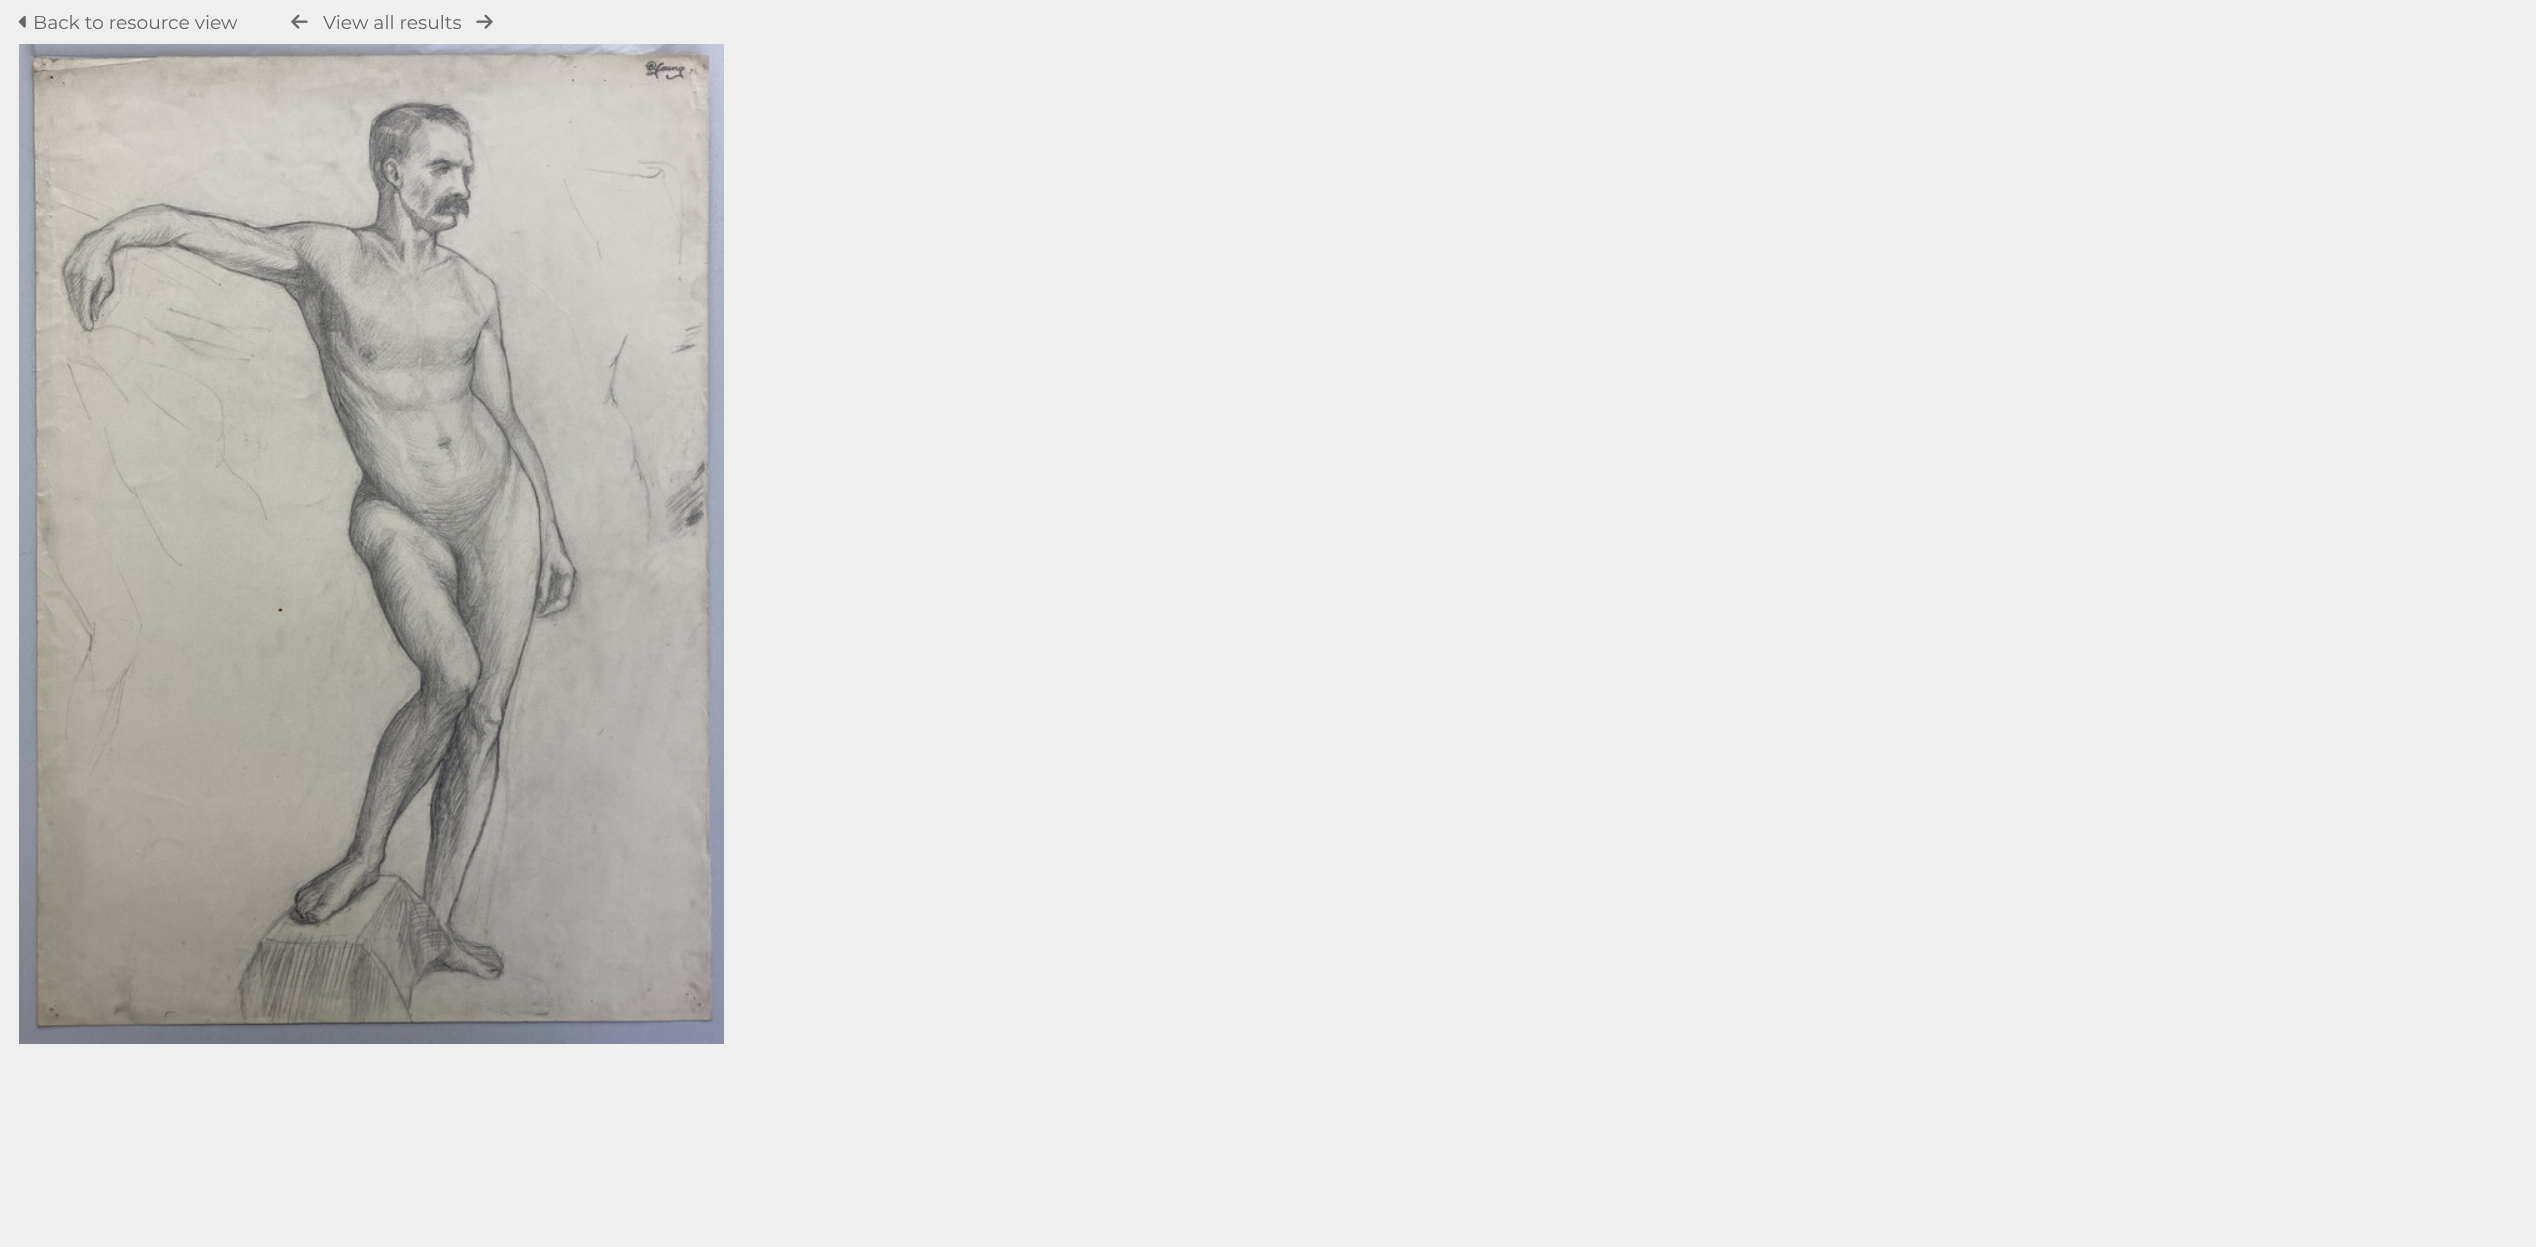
(async () => {
const canvas = document.querySelector("canvas")
canvas.width = 2536
canvas.height = 1247
const c = canvas.getContext("2d")
c.miterLimit = 4
c.fontKerning = "normal"
function T(s,x,y){c.fillText(s,x,y)}
function R(x,y,w,h){c.fillRect(x,y,w,h)}
async function I(src,x,y,w,h){const img=new Image();img.src=src;await img.decode();c.drawImage(img,x,y,w,h)}
c.fillStyle="#efefef"
R(0,0,2536,1247)
await I("1.png",18,15,8,13)
c.font="18.75px Montserrat"
c.fillStyle="#666"
T("Back to resource view",33,29)
await I("2.png",291,14,17,15)
T("View all results",323,29)
await I("3.png",476,14,17,15)
await I("4.png",19,44,705,1000)
})()
